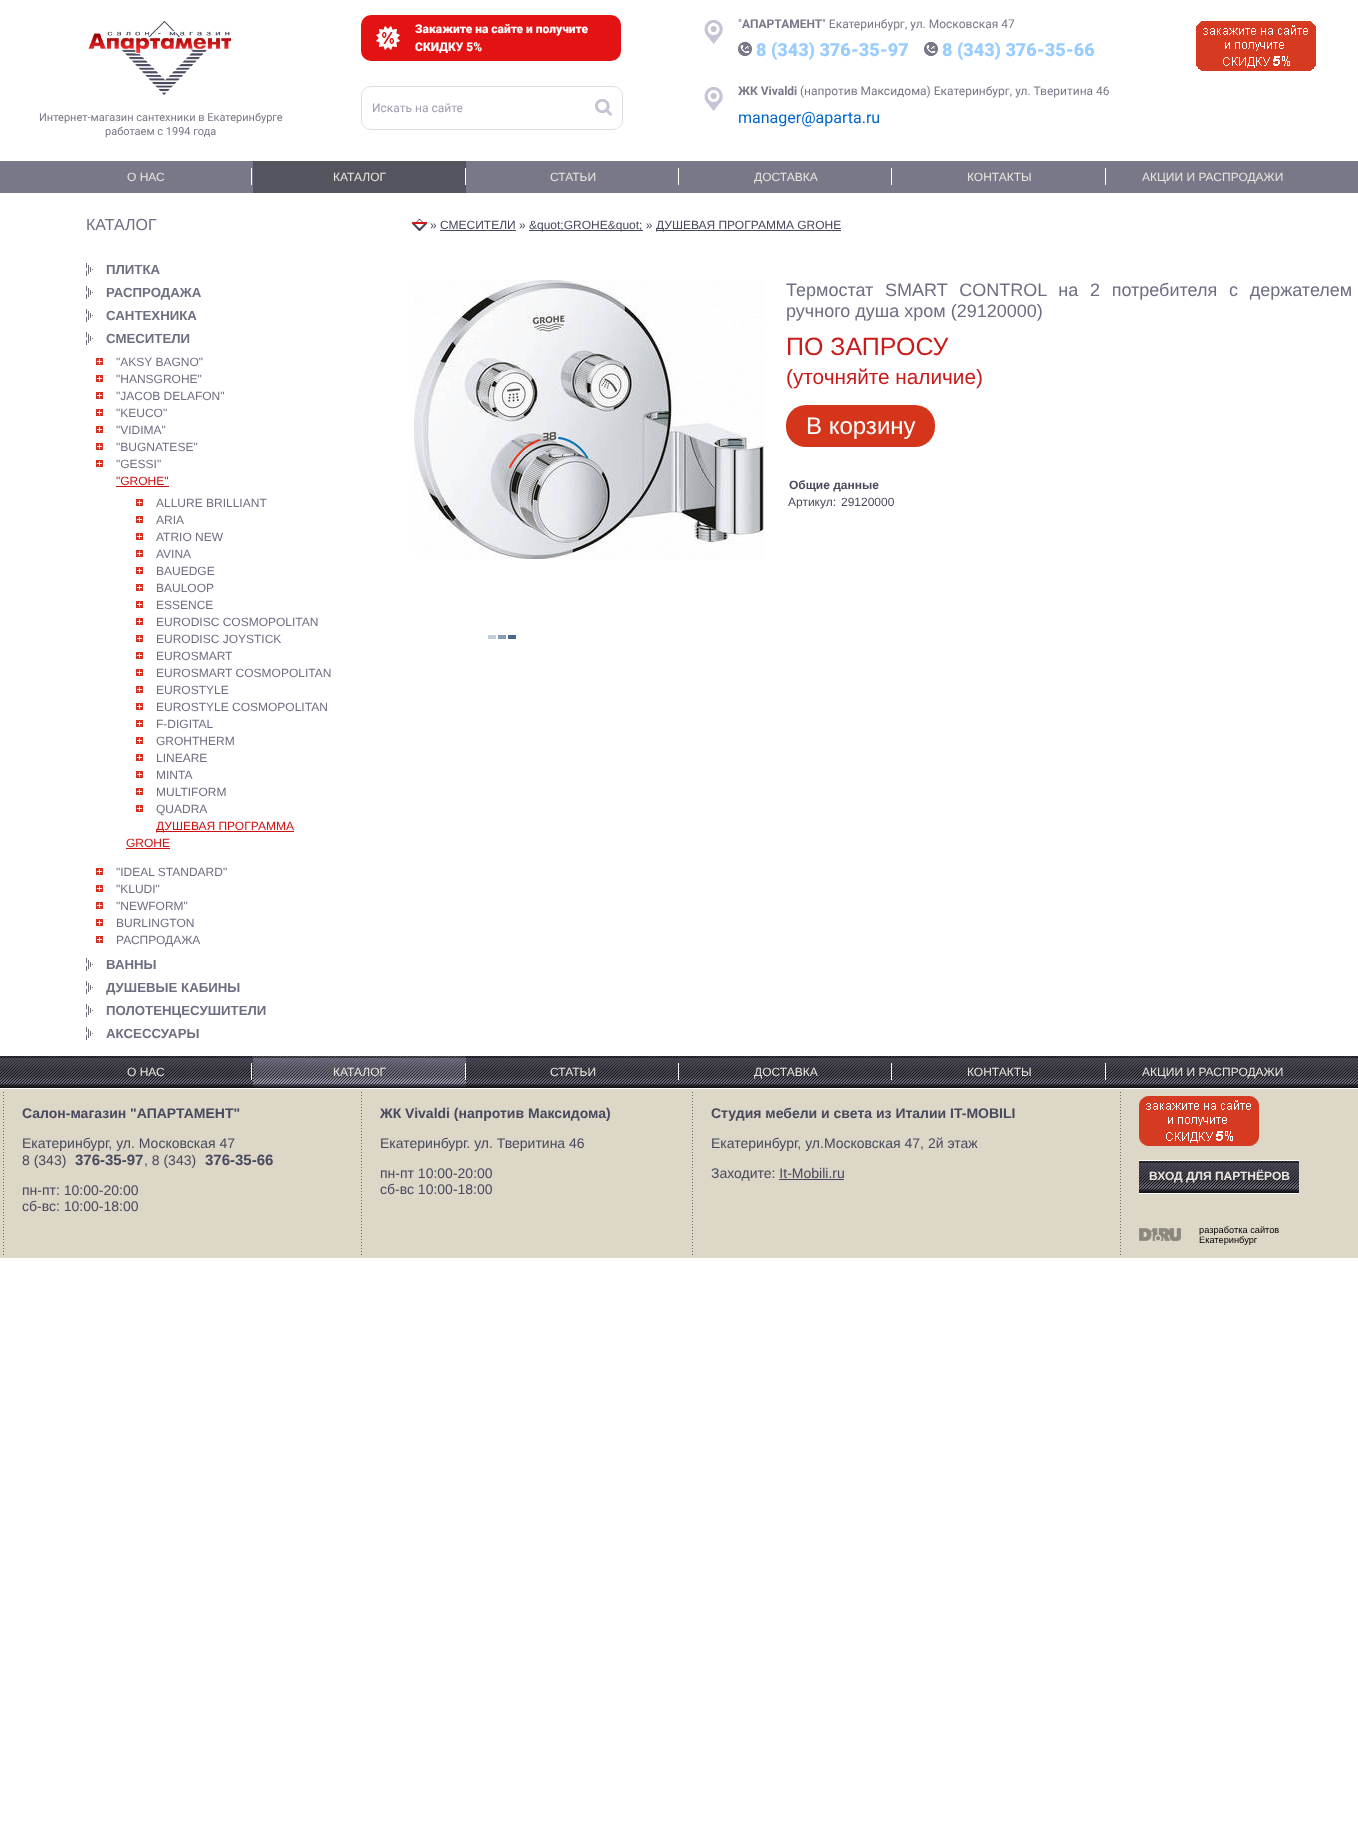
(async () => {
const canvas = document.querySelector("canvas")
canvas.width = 1358
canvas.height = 1828
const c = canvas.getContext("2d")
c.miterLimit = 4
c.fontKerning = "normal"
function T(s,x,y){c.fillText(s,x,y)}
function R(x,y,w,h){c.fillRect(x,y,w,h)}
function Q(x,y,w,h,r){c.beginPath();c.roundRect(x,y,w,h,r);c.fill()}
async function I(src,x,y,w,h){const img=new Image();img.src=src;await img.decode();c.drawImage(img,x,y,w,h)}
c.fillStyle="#fff"
R(0,0,1358,1828)
c.fillStyle="#e31313"
Q(361,15,260,46,10)
await I("1.png",376,26,24,24)
c.font="900 12px Roboto"
c.fillStyle="#fff"
T("Закажите на сайте и получите",415,33)
T("СКИДКУ 5%",415,51)
c.beginPath()
c.roundRect(361.5,86.5,261,43,9.5)
c.strokeStyle="#dcdfdf"
c.stroke()
c.font="12px Roboto"
c.fillStyle="#9e9eb2"
T("Искать на сайте",372,112)
await I("2.png",595,99,17,17)
await I("3.png",704,20,19,24)
c.fillStyle="#787888"
T("\"",738,28)
c.font="bold 12px Roboto"
T("АПАРТАМЕНТ",742,28)
c.font="12px Roboto"
T("\" Екатеринбург, ул. Московская 47",822,28)
await I("4.png",738,42,14,14)
c.font="900 18px Roboto"
c.fillStyle="#9cf"
T("8 (343) 376-35-97",756,56)
await I("4.png",924,42,14,14)
T("8 (343) 376-35-66",942,56)
await I("3.png",704,87,19,24)
c.font="bold 12px Roboto"
c.fillStyle="#787888"
T("ЖК Vivaldi",738,95)
c.font="12px Roboto"
T("(напротив Максидома) Екатеринбург, ул. Тверитина 46",800,95)
c.font="16px Roboto"
c.fillStyle="#06c"
T("manager@aparta.ru",738,123)
await I("5.png",1196,21,120,50)
await I("6.png",88,21,144,74)
c.font="11px Roboto"
c.fillStyle="#787888"
T("Интернет-магазин сантехники в Екатеринбурге",39,121)
T("работаем с 1994 года",105,135)
R(0,161,1358,32)
c.font="12px Liberation Sans"
c.fillStyle="#ebe5df"
T("О НАС",127,181)
c.fillStyle="#fff"
R(251,168,1,17)
c.fillStyle="#54545f"
R(253,161,213,32)
c.fillStyle="#ebe5df"
T("КАТАЛОГ",333,181)
c.fillStyle="#fff"
R(465,168,1,17)
c.fillStyle="#ebe5df"
T("СТАТЬИ",550,181)
c.fillStyle="#fff"
R(678,168,1,17)
c.fillStyle="#ebe5df"
T("ДОСТАВКА",754,181)
c.fillStyle="#fff"
R(891,168,1,17)
c.fillStyle="#ebe5df"
T("КОНТАКТЫ",967,181)
c.fillStyle="#fff"
R(1105,168,1,17)
c.fillStyle="#ebe5df"
T("АКЦИИ И РАСПРОДАЖИ",1142,181)
c.font="16px Liberation Sans"
c.fillStyle="#6e6e83"
T("КАТАЛОГ",86,230)
await I("7.png",86,263,7,13)
c.font="bold 13.25px Liberation Sans"
T("ПЛИТКА",106,274)
await I("7.png",86,286,7,13)
T("РАСПРОДАЖА",106,297)
await I("7.png",86,309,7,13)
T("САНТЕХНИКА",106,320)
await I("7.png",86,332,7,13)
T("СМЕСИТЕЛИ",106,343)
await I("8.png",96,358,7,7)
c.font="12px Liberation Sans"
T("\"AKSY BAGNO\"",116,366)
await I("8.png",96,375,7,7)
T("\"HANSGROHE\"",116,383)
await I("8.png",96,392,7,7)
T("\"JACOB DELAFON\"",116,400)
await I("8.png",96,409,7,7)
T("\"KEUCO\"",116,417)
await I("8.png",96,426,7,7)
T("\"VIDIMA\"",116,434)
await I("8.png",96,443,7,7)
T("\"BUGNATESE\"",116,451)
await I("8.png",96,460,7,7)
T("\"GESSI\"",116,468)
c.fillStyle="#cf1111"
T("\"GROHE\"",116,485)
R(116,486,53,1)
await I("8.png",136,499,7,7)
c.fillStyle="#6e6e83"
T("ALLURE BRILLIANT",156,507)
await I("8.png",136,516,7,7)
T("ARIA",156,524)
await I("8.png",136,533,7,7)
T("ATRIO NEW",156,541)
await I("8.png",136,550,7,7)
T("AVINA",156,558)
await I("8.png",136,567,7,7)
T("BAUEDGE",156,575)
await I("8.png",136,584,7,7)
T("BAULOOP",156,592)
await I("8.png",136,601,7,7)
T("ESSENCE",156,609)
await I("8.png",136,618,7,7)
T("EURODISC COSMOPOLITAN",156,626)
await I("8.png",136,635,7,7)
T("EURODISC JOYSTICK",156,643)
await I("8.png",136,652,7,7)
T("EUROSMART",156,660)
await I("8.png",136,669,7,7)
T("EUROSMART COSMOPOLITAN",156,677)
await I("8.png",136,686,7,7)
T("EUROSTYLE",156,694)
await I("8.png",136,703,7,7)
T("EUROSTYLE COSMOPOLITAN",156,711)
await I("8.png",136,720,7,7)
T("F-DIGITAL",156,728)
await I("8.png",136,737,7,7)
T("GROHTHERM",156,745)
await I("8.png",136,754,7,7)
T("LINEARE",156,762)
await I("8.png",136,771,7,7)
T("MINTA",156,779)
await I("8.png",136,788,7,7)
T("MULTIFORM",156,796)
await I("8.png",136,805,7,7)
T("QUADRA",156,813)
c.fillStyle="#cf1111"
R(156,831,138,1)
T("ДУШЕВАЯ ПРОГРАММА",156,830)
T("GROHE",126,847)
R(126,848,44,1)
await I("8.png",96,868,7,7)
c.fillStyle="#6e6e83"
T("\"IDEAL STANDARD\"",116,876)
await I("8.png",96,885,7,7)
T("\"KLUDI\"",116,893)
await I("8.png",96,902,7,7)
T("\"NEWFORM\"",116,910)
await I("8.png",96,919,7,7)
T("BURLINGTON",116,927)
await I("8.png",96,936,7,7)
T("РАСПРОДАЖА",116,944)
await I("7.png",86,958,7,13)
c.font="bold 13.25px Liberation Sans"
T("ВАННЫ",106,969)
await I("7.png",86,981,7,13)
T("ДУШЕВЫЕ КАБИНЫ",106,992)
await I("7.png",86,1004,7,13)
T("ПОЛОТЕНЦЕСУШИТЕЛИ",106,1015)
await I("7.png",86,1027,7,13)
T("АКСЕССУАРЫ",106,1038)
await I("9.png",412,219,15,12)
c.font="12px Liberation Sans"
c.fillStyle="#48485e"
T("» СМЕСИТЕЛИ »",430,229)
R(440,230,76,1)
R(529,230,114,1)
T("&quot;GROHE&quot; »",529,229)
R(656,230,185,1)
T("ДУШЕВАЯ ПРОГРАММА GROHE",656,229)
await I("10.png",414,280,350,279)
c.wordSpacing="6.75px"
c.font="18px Liberation Sans"
c.fillStyle="#6e6e83"
T("Термостат SMART CONTROL на 2 потребителя с держателем",786,296)
c.wordSpacing="0px"
T("ручного душа хром (29120000)",786,317)
c.font="25px Liberation Sans"
c.fillStyle="#ca1b1b"
T("ПО ЗАПРОСУ",786,355)
c.font="20.75px Liberation Sans"
T("(уточняйте наличие)",786,384)
c.fillStyle="#d5351b"
Q(786,405,149,42,20)
c.font="24px Liberation Sans"
c.fillStyle="#fff"
T("В корзину",806,434)
c.font="bold 12px Liberation Sans"
c.fillStyle="#48485e"
T("Общие данные",789,489)
c.font="12px Liberation Sans"
T("Артикул:",788,506)
T("29120000",841,506)
await I("11.png",488,635,28,4)
c.fillStyle="#ddd7c7"
R(0,1089,1358,169)
await I("12.png",0,1056,1358,32)
c.fillStyle="#ebe5df"
T("О НАС",127,1076)
c.fillStyle="#fff"
R(251,1063,1,17)
await I("13.png",253,1056,213,32)
c.fillStyle="#ebe5df"
T("КАТАЛОГ",333,1076)
c.fillStyle="#fff"
R(465,1063,1,17)
c.fillStyle="#ebe5df"
T("СТАТЬИ",550,1076)
c.fillStyle="#fff"
R(678,1063,1,17)
c.fillStyle="#ebe5df"
T("ДОСТАВКА",754,1076)
c.fillStyle="#fff"
R(891,1063,1,17)
c.fillStyle="#ebe5df"
T("КОНТАКТЫ",967,1076)
c.fillStyle="#fff"
R(1105,1063,1,17)
c.fillStyle="#ebe5df"
T("АКЦИИ И РАСПРОДАЖИ",1142,1076)
await I("14.png",3,1092,1,163)
c.font="bold 14px Liberation Sans"
c.fillStyle="#48485e"
T("Салон-магазин \"АПАРТАМЕНТ\"",22,1118)
c.font="14px Liberation Sans"
T("Екатеринбург, ул. Московская 47",22,1148)
T("8 (343)",22,1165)
c.font="bold 15px Liberation Sans"
T("376-35-97",75,1165)
c.font="14px Liberation Sans"
T(", 8 (343)",144,1165)
c.font="bold 15px Liberation Sans"
T("376-35-66",205,1165)
c.font="14px Liberation Sans"
T("пн-пт: 10:00-20:00",22,1195)
T("сб-вс: 10:00-18:00",22,1211)
await I("14.png",361,1092,1,163)
c.font="bold 14px Liberation Sans"
T("ЖК Vivaldi (напротив Максидома)",380,1118)
c.font="14px Liberation Sans"
T("Екатеринбург. ул. Тверитина 46",380,1148)
T("пн-пт 10:00-20:00",380,1178)
T("сб-вс 10:00-18:00",380,1194)
await I("14.png",692,1092,1,163)
c.font="bold 14px Liberation Sans"
T("Студия мебели и света из Италии IT-MOBILI",711,1118)
c.font="14px Liberation Sans"
T("Екатеринбург, ул.Московская 47, 2й этаж",711,1148)
T("Заходите: It-Mobili.ru",711,1178)
R(779,1179,65,1)
await I("14.png",1120,1092,1,163)
await I("15.png",1139,1096,120,50)
await I("16.png",1139,1160,160,34)
c.font="bold 12px Liberation Sans"
c.fillStyle="#ebe5df"
T("ВХОД ДЛЯ ПАРТНЁРОВ",1149,1180)
await I("17.png",1139,1228,42,13)
c.font="9.25px Liberation Sans"
c.fillStyle="#000"
T("разработка сайтов",1199,1233)
T("Екатеринбург",1199,1243)
})()
